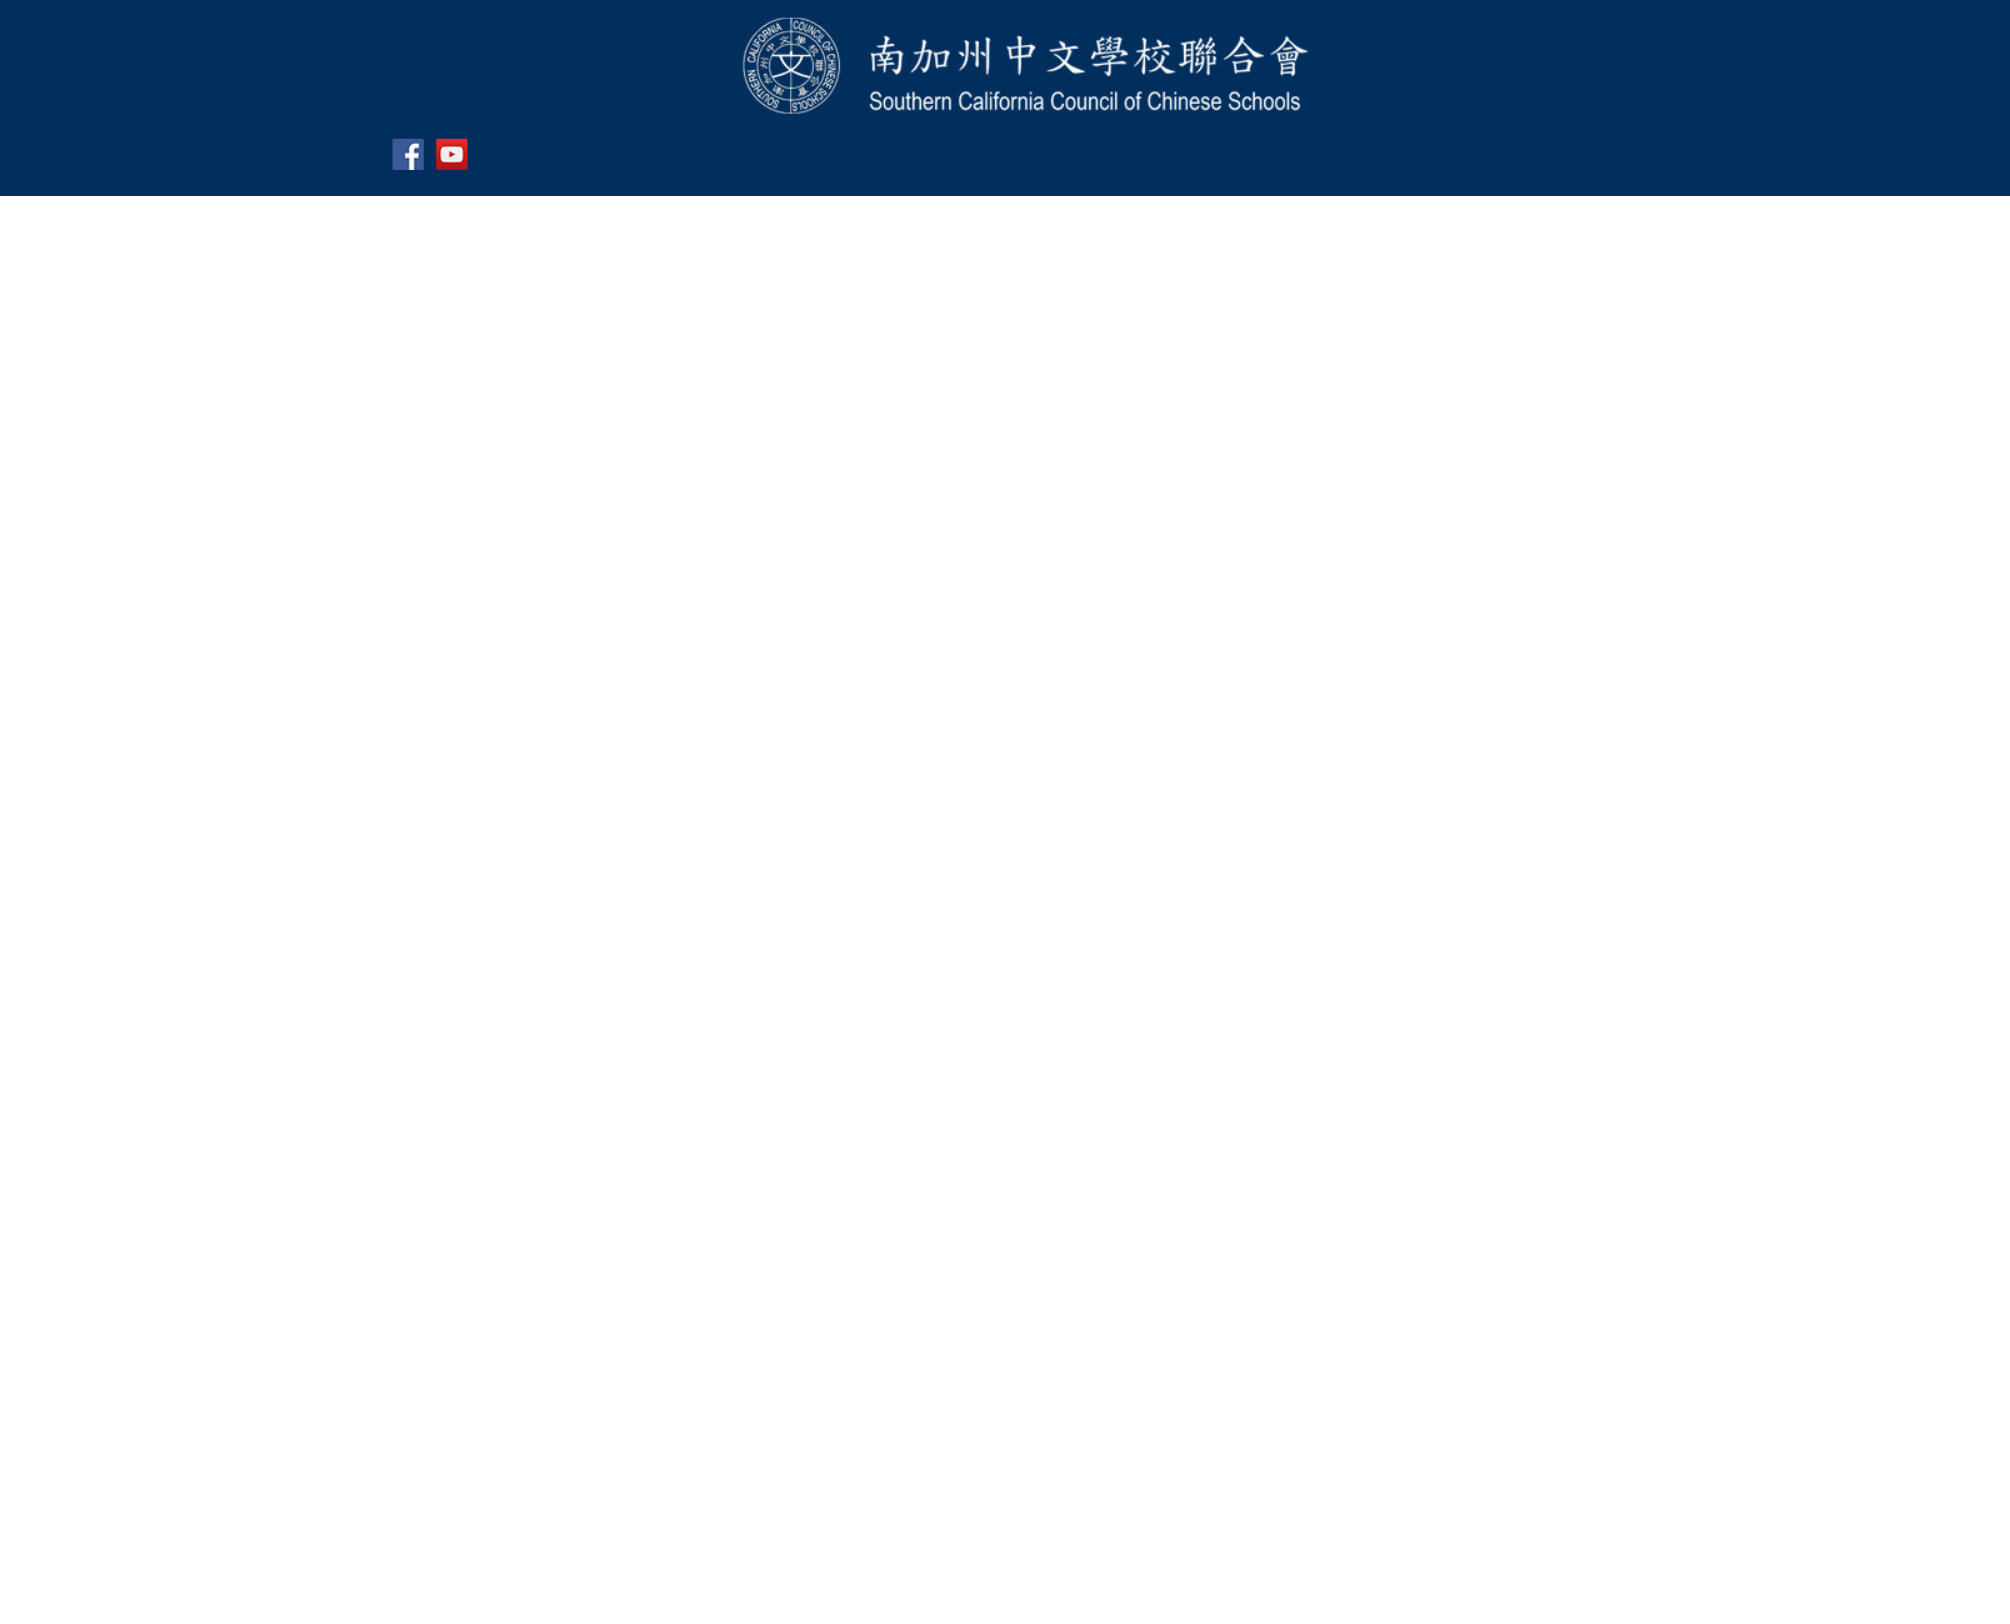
(async () => {
const canvas = document.querySelector("canvas")
canvas.width = 2010
canvas.height = 1624
const c = canvas.getContext("2d")
c.miterLimit = 4
c.fontKerning = "normal"
function R(x,y,w,h){c.fillRect(x,y,w,h)}
async function I(src,x,y,w,h){const img=new Image();img.src=src;await img.decode();c.drawImage(img,x,y,w,h)}
c.fillStyle="#fff"
R(0,0,2010,1624)
c.fillStyle="#002e5d"
R(0,0,2010,196)
await I("1.png",742,17,99,97)
await I("2.png",869,35,440,77)
await I("3.png",392,138,32,32)
await I("4.png",436,138,32,32)
})()
